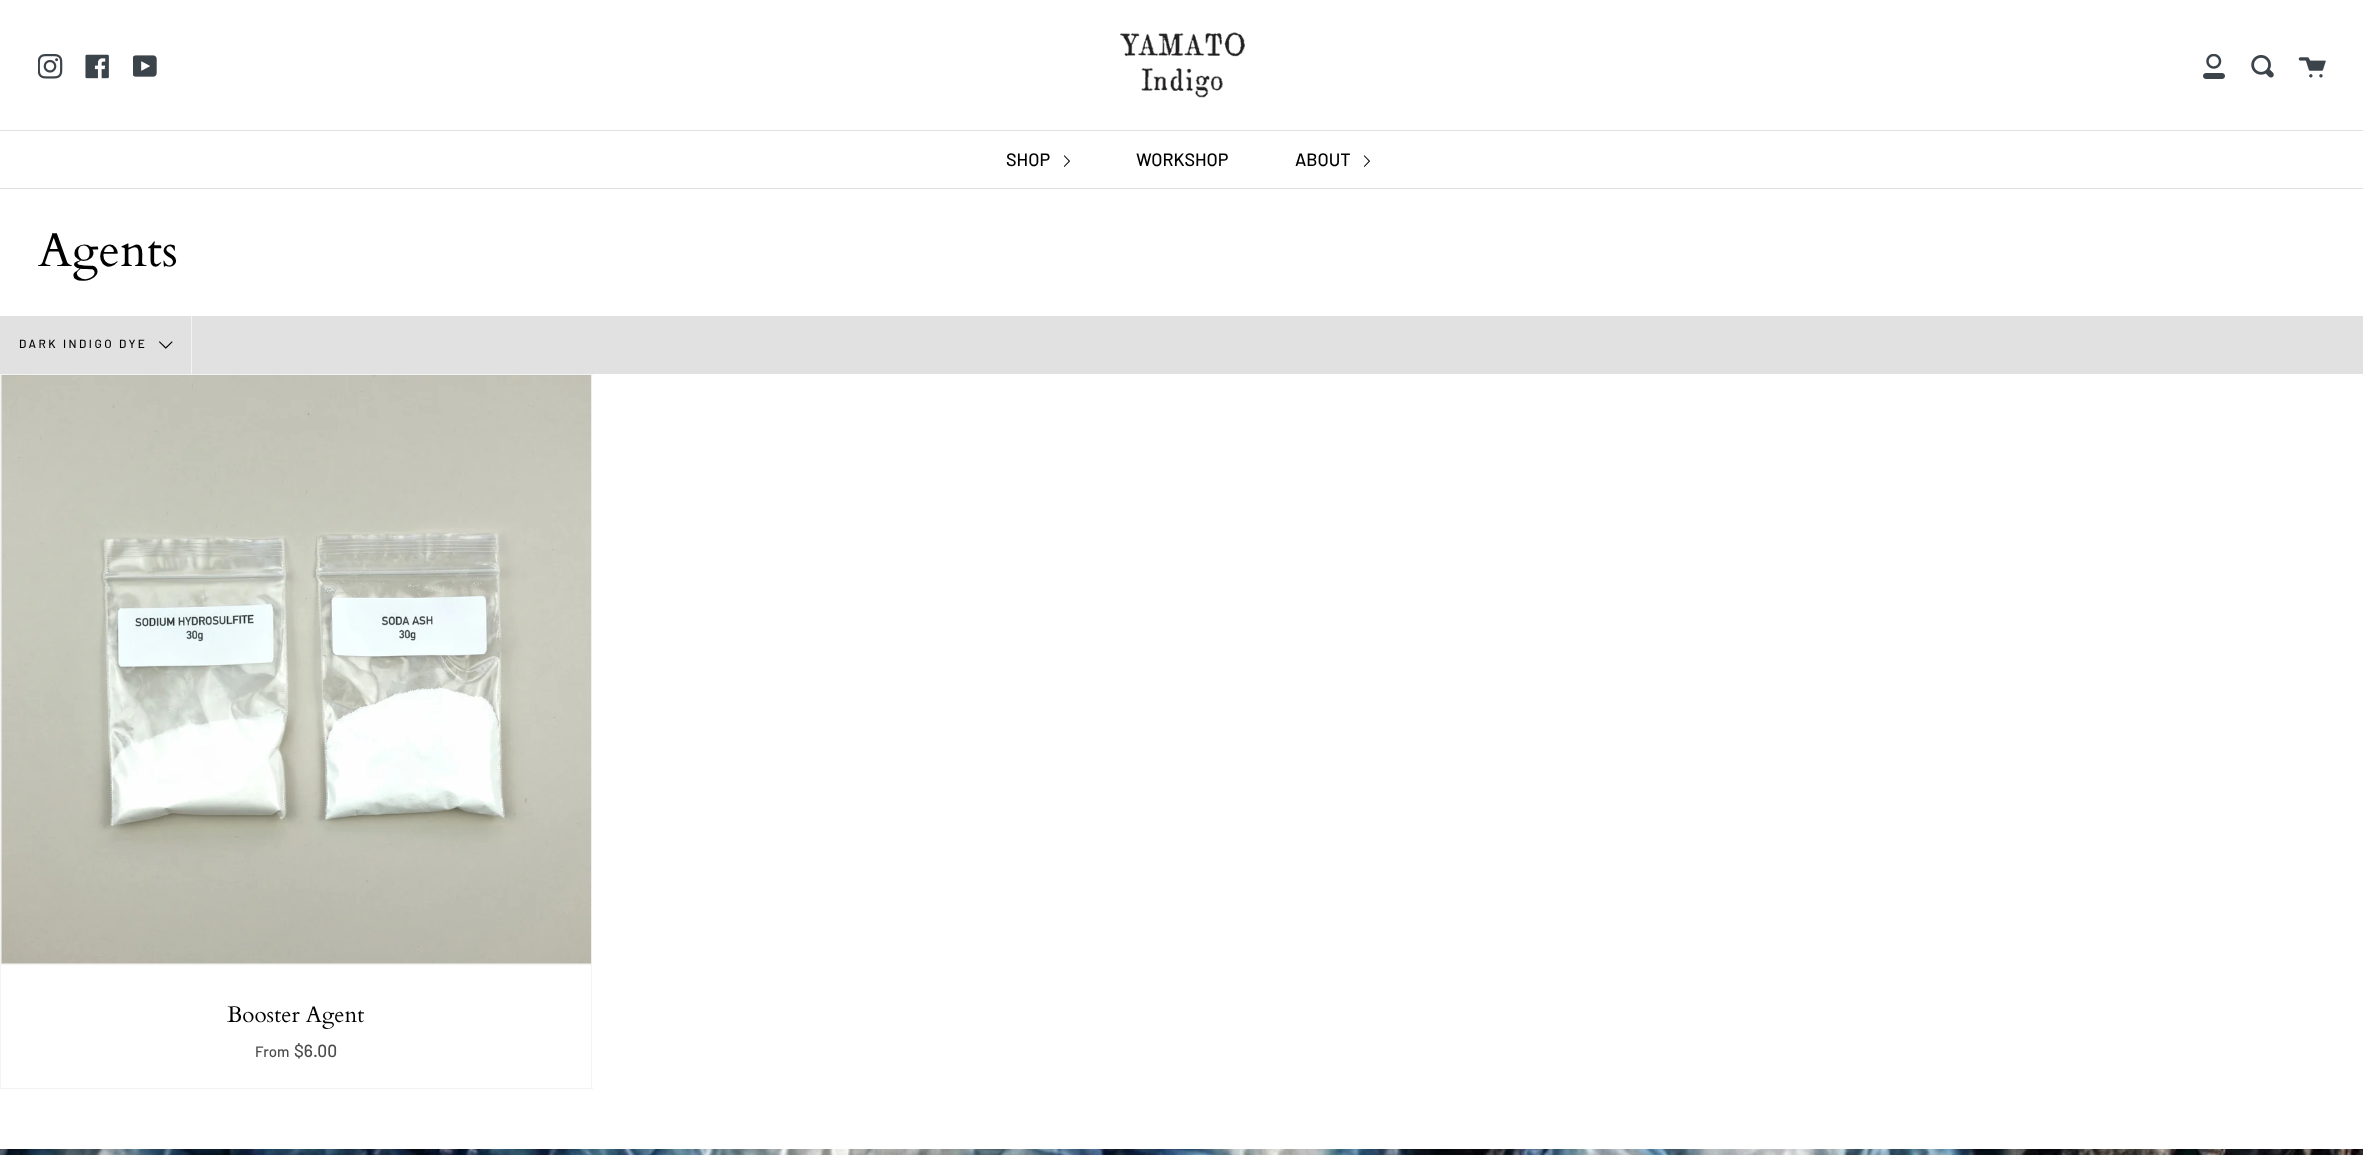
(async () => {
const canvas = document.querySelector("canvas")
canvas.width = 2363
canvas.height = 1155
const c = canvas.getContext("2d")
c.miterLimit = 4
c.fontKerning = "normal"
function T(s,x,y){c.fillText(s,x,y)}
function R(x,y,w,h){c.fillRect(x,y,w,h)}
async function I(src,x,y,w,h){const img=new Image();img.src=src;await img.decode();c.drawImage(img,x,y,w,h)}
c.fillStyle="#fff"
R(0,0,2363,1155)
await I("1.png",38,54,25,25)
await I("2.png",85,54,24,25)
await I("3.png",133,55,24,22)
await I("4.png",1120,32,125,66)
await I("5.png",2203,54,22,25)
await I("6.png",2251,55,23,23)
await I("7.png",2298,57,28,21)
c.fillStyle="#e1e1e1"
R(0,130,2363,1)
R(0,188,2363,1)
c.font="500 18px Barlow"
c.fillStyle="#000"
T("SHOP",1006,166)
await I("8.png",1064,155,6,12)
T("WORKSHOP",1136,166)
T("ABOUT",1295,166)
await I("8.png",1364,155,6,12)
c.font="47.5px Cardo"
T("Agents",38,266)
c.fillStyle="#e1e1e1"
R(0,316,2363,58)
c.fillStyle="#f3f3f3"
R(191,316,1,58)
c.letterSpacing="2.5px"
c.font="500 11.9px Barlow"
c.fillStyle="#000"
T("DARK INDIGO DYE",19,348)
await I("9.png",159,341,14,8)
c.fillStyle="#f3f3f3"
R(0,374,1,715)
R(1,374,592,1)
R(591,374,1,715)
R(1,1088,592,1)
R(1,964,590,1)
await I("10.png",1,375,591,589)
c.letterSpacing="0px"
c.font="22.5px Cardo"
c.fillStyle="#000"
T("Booster Agent",227,1022)
c.font="500 15px Barlow"
c.fillStyle="#4d4d4d"
T("From",255,1057)
c.font="500 17.5px Barlow"
T("$6.00",294,1057)
await I("11.png",0,1149,2363,6)
})()
